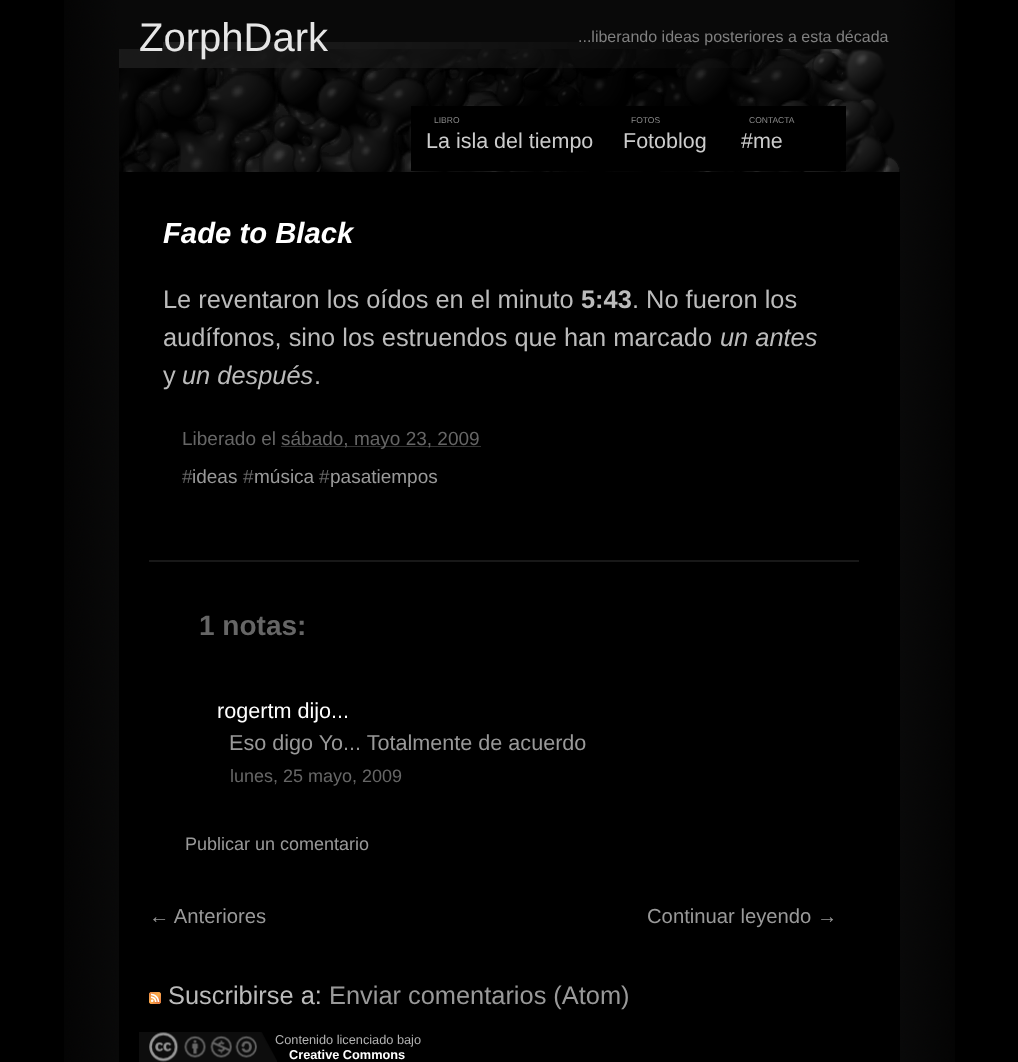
(async () => {
const canvas = document.querySelector("canvas")
canvas.width = 1018
canvas.height = 1062
const c = canvas.getContext("2d")
c.miterLimit = 4
c.fontKerning = "normal"
function T(s,x,y){c.fillText(s,x,y)}
function R(x,y,w,h){c.fillRect(x,y,w,h)}
async function I(src,x,y,w,h){const img=new Image();img.src=src;await img.decode();c.drawImage(img,x,y,w,h)}
let path
c.fillStyle="#000"
R(0,0,1018,1062)
await I("1.png",64,0,891,1062)
R(119,172,781,890)
await I("2.png",119,42,781,130)
c.font="40px Liberation Sans"
c.fillStyle="#e6e6e6"
T("ZorphDark",139,51)
c.font="16px Liberation Sans"
c.fillStyle="#808080"
T("...liberando ideas posteriores a esta década",578,42)
c.fillStyle="#000"
R(411,106,435,65)
c.font="8.5px Liberation Sans"
c.fillStyle="#8b8b8b"
T("LIBRO",434,123)
c.font="21.5px Liberation Sans"
c.fillStyle="#ccc"
T("La isla del tiempo",426,148)
c.font="8.5px Liberation Sans"
c.fillStyle="#8b8b8b"
T("FOTOS",631,123)
c.font="21.5px Liberation Sans"
c.fillStyle="#ccc"
T("Fotoblog",623,148)
c.font="8.5px Liberation Sans"
c.fillStyle="#8b8b8b"
T("CONTACTA",749,123)
c.font="21.5px Liberation Sans"
c.fillStyle="#ccc"
T("#me",741,148)
c.fillStyle="#181818"
R(149,560,710,2)
c.font="italic bold 29.25px Liberation Sans"
c.fillStyle="#fff"
T("Fade to Black",163,243)
c.font="25.4px Liberation Sans"
c.fillStyle="#bbb"
T("Le reventaron los oídos en el minuto",163,308)
c.font="bold 25.4px Liberation Sans"
T("5:43",581,308)
c.font="25.4px Liberation Sans"
T(". No fueron los",632,308)
T("audífonos, sino los estruendos que han marcado",163,346)
c.font="italic 25.4px Liberation Sans"
T("un antes",720,346)
c.font="25.4px Liberation Sans"
T("y",163,384)
c.font="italic 25.4px Liberation Sans"
T("un después",182,384)
c.font="25.4px Liberation Sans"
T(".",314,384)
c.font="19px Liberation Sans"
c.fillStyle="#666"
T("Liberado el",182,445)
path = new Path2D("M281.5 446.5h199")
c.strokeStyle="#666"
c.setLineDash([1,1])
c.stroke(path)
T("sábado, mayo 23, 2009",281,445)
T("#",182,483)
c.fillStyle="#999"
T("ideas",192,483)
c.fillStyle="#666"
T("#",243,483)
c.fillStyle="#999"
T("música",254,483)
c.fillStyle="#666"
T("#",319,483)
c.fillStyle="#999"
T("pasatiempos",330,483)
c.font="bold 28px Liberation Sans"
c.fillStyle="#666"
T("1 notas:",199,635)
c.font="21.6px Liberation Sans"
c.fillStyle="#fff"
T("rogertm dijo...",217,718)
c.fillStyle="#999"
T("Eso digo Yo... Totalmente de acuerdo",229,750)
c.font="18px Liberation Sans"
c.fillStyle="#666"
T("lunes, 25 mayo, 2009",230,782)
c.fillStyle="#999"
T("Publicar un comentario",185,850)
c.font="20.25px Liberation Sans"
T("← Anteriores",149,923)
T("Continuar leyendo →",647,923)
await I("3.png",149,992,12,12)
c.font="25.4px Liberation Sans"
c.fillStyle="#bbb"
T("Suscribirse a:",168,1004)
c.fillStyle="#999"
T("Enviar comentarios (Atom)",329,1004)
await I("4.png",139,1032,138,30)
c.font="12.75px Liberation Sans"
c.fillStyle="#b3b3b3"
T("Contenido licenciado bajo",275,1044)
c.font="bold 12.75px Liberation Sans"
c.fillStyle="#fff"
T("Creative Commons",289,1059)
})()
